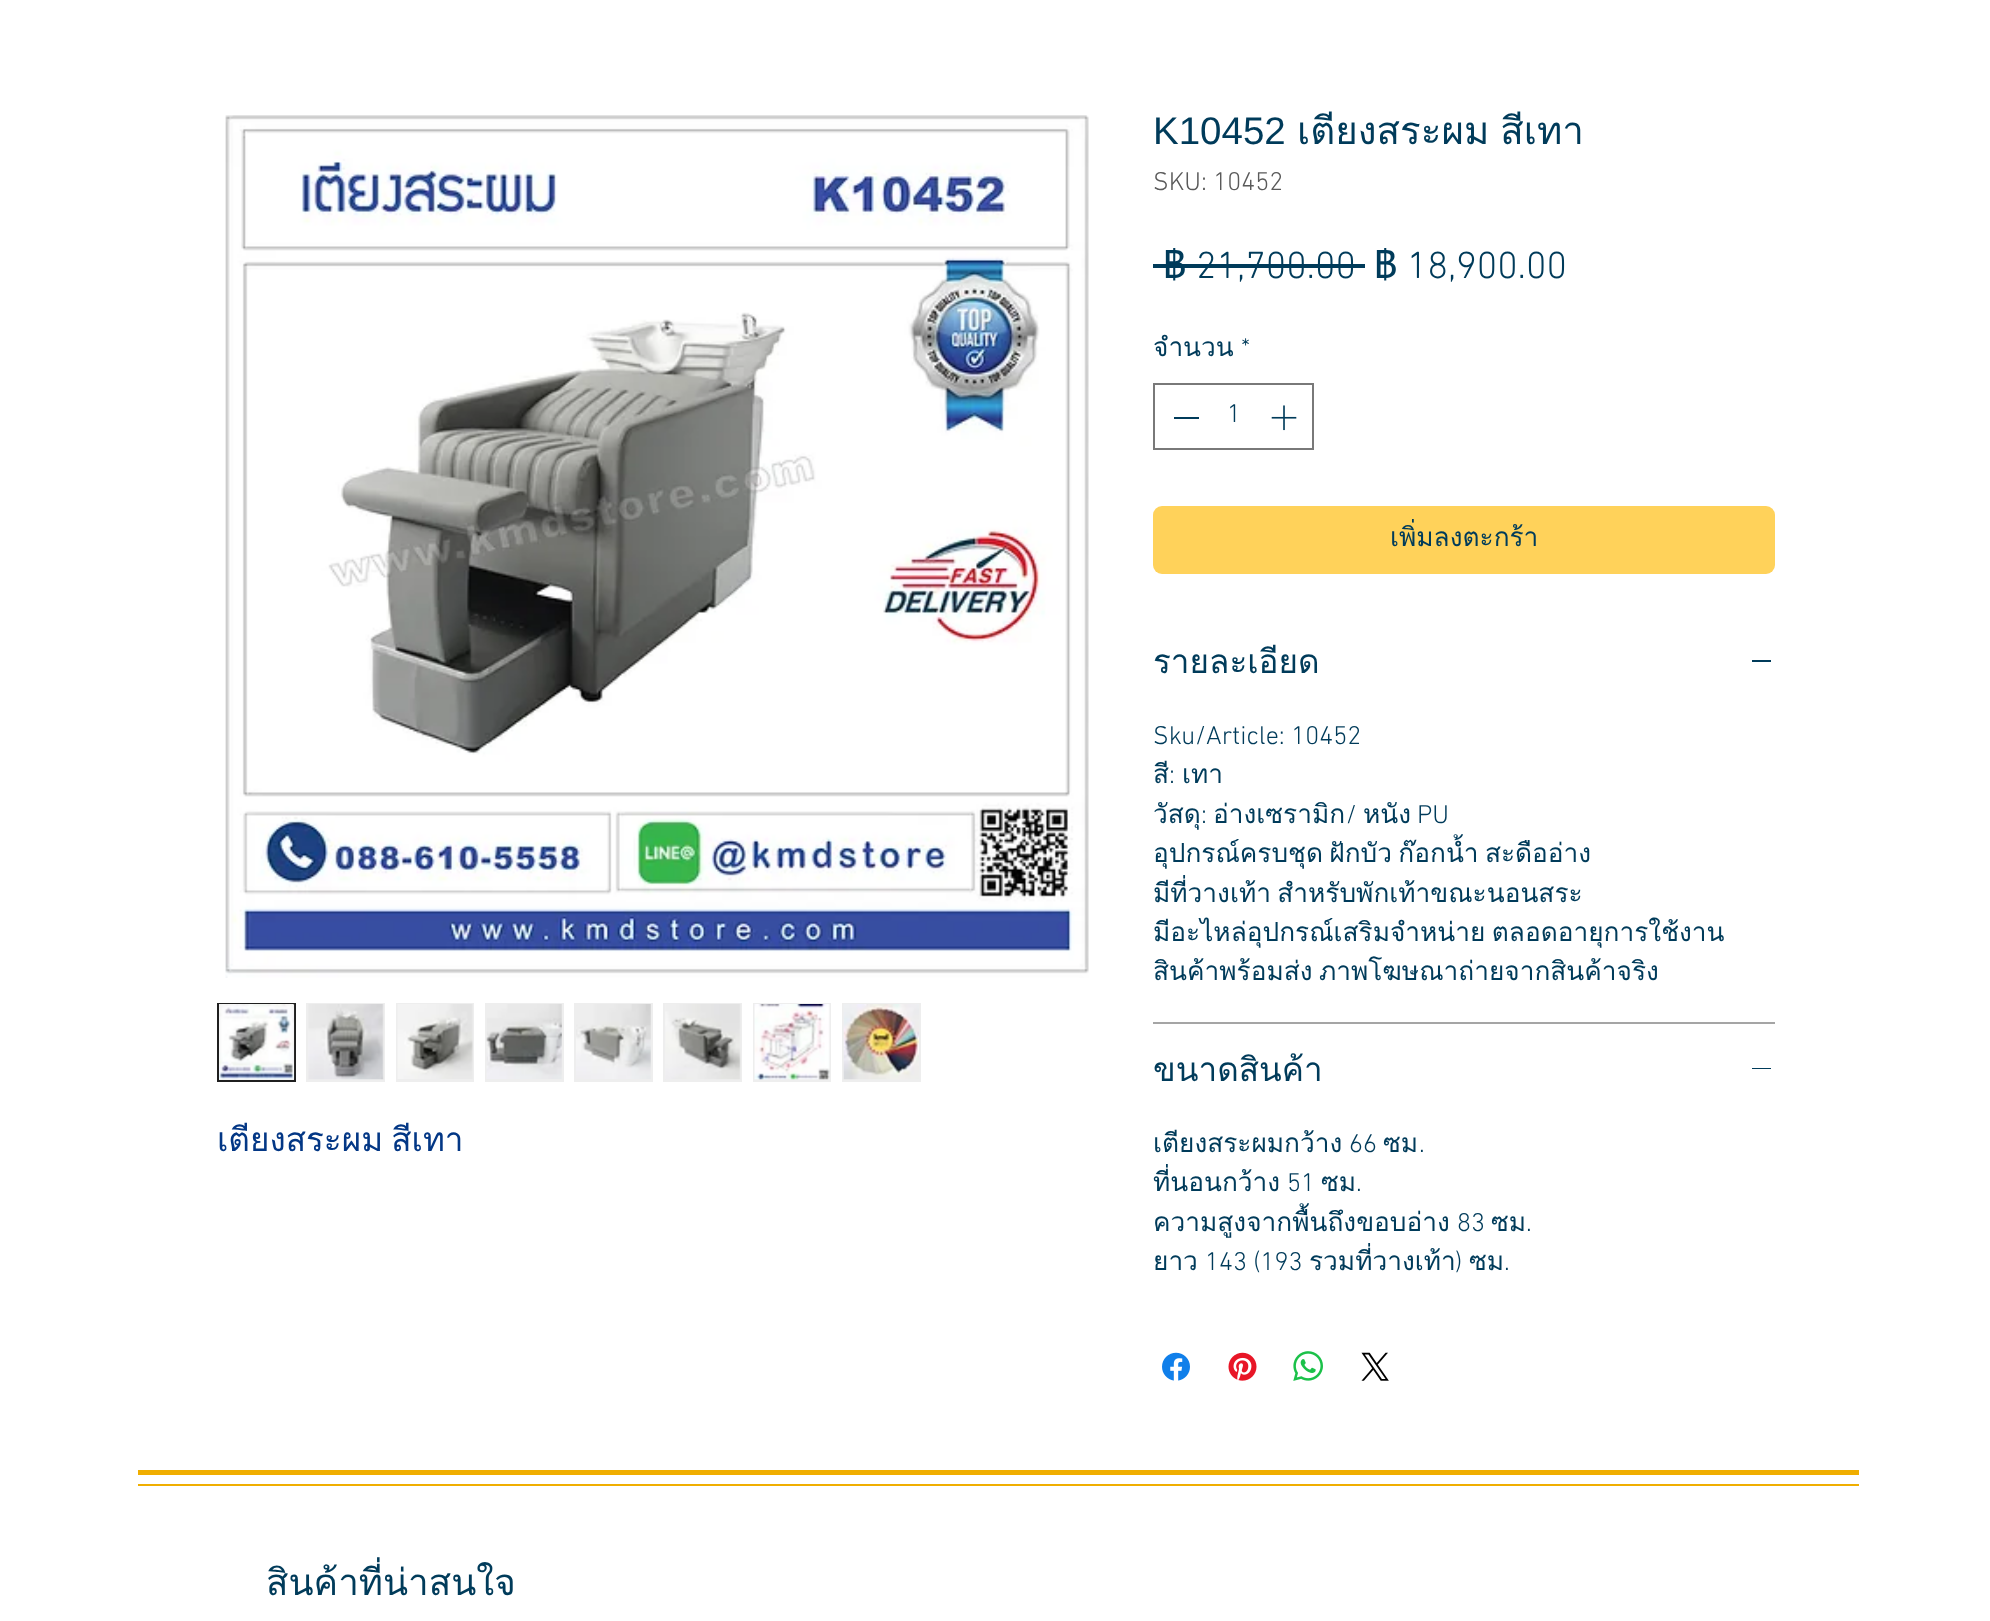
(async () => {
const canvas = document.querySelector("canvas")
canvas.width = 1990
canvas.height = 1621
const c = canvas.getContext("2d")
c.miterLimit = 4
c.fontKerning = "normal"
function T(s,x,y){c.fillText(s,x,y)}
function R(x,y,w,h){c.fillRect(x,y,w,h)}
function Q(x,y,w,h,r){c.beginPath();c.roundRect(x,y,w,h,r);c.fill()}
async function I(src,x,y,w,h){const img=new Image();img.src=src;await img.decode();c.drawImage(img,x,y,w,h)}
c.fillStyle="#fff"
R(0,0,1990,1621)
await I("1.png",225,115,864,863)
c.fillStyle="#eee"
c.beginPath()
c.rect(218,1004,77,77)
c.fill()
c.strokeStyle="#1f1f1f"
c.lineWidth=2
c.stroke()
await I("2.png",219,1004,76,76)
R(306,1003,79,79)
await I("3.png",308,1004,76,76)
R(396,1003,78,79)
await I("4.png",397,1004,76,75)
R(485,1003,79,79)
await I("5.png",486,1004,76,75)
R(574,1003,79,79)
await I("6.png",576,1004,75,75)
R(663,1003,79,79)
await I("7.png",665,1004,76,76)
R(753,1003,78,79)
await I("8.png",754,1004,76,76)
R(842,1003,79,79)
await I("9.png",843,1004,76,76)
c.save()
c.beginPath()
c.rect(217,1117,247,101)
c.clip()
c.wordSpacing="-3px"
c.font="33.25px Loma"
c.fillStyle="#033785"
T("เตียงสระผม สีเทา",217,1151)
c.restore()
c.font="38.5px Liberation Sans"
c.fillStyle="#003b5a"
T("K10452",1153,144)
c.wordSpacing="-2px"
c.font="38.5px Loma"
T("เตียงสระผม สีเทา",1297,144)
c.wordSpacing="0px"
c.font="300 26.25px 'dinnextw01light'"
c.fillStyle="#5a5a5a"
T("SKU: 10452",1153,190)
c.font="38.5px Loma"
c.fillStyle="#003b5a"
T("฿",1163,278)
c.font="300 38.5px 'dinnextw01light'"
T("21,700.00",1196,278)
R(1153,264,212,4)
c.font="38.5px Loma"
T("฿",1374,278)
c.font="300 38.5px 'dinnextw01light'"
T("18,900.00",1407,278)
c.font="26.25px Loma"
T("จำนวน",1153,356)
c.font="300 26.25px 'dinnextw01light'"
T("*",1241,356)
c.strokeStyle="#797979"
c.strokeRect(1154,384,159,65)
R(1174,417,25,2)
T("1",1227,422)
await I("10.png",1271,405,26,26)
c.fillStyle="#ffd25a"
Q(1153,506,622,68,9)
c.font="26.25px Loma"
c.fillStyle="#003b5a"
T("เพิ่มลงตะกร้า",1390,546)
c.fillStyle="#a5a5a5"
R(1153,1022,622,2)
c.font="33.25px Loma"
c.fillStyle="#003b5a"
T("รายละเอียด",1153,673)
R(1752,660,19,2)
c.font="300 26.25px 'dinnextw01light'"
T("Sku/Article: 10452",1153,744)
c.font="26.25px Loma"
T("สี",1153,783)
c.font="300 26.25px 'dinnextw01light'"
T(":",1169,783)
c.font="26.25px Loma"
T("เทา",1182,783)
T("วัสดุ",1153,823)
c.font="300 26.25px 'dinnextw01light'"
T(":",1201,823)
c.font="26.25px Loma"
T("อ่างเซรามิก",1213,823)
c.font="300 26.25px 'dinnextw01light'"
T("/",1346,823)
c.font="26.25px Loma"
T("หนัง",1363,823)
c.font="300 26.25px 'dinnextw01light'"
T("PU",1417,823)
c.wordSpacing="-2.5px"
c.font="26.25px Loma"
T("อุปกรณ์ครบชุด ฝักบัว ก๊อกน้ำ สะดืออ่าง",1153,862)
T("มีที่วางเท้า สำหรับพักเท้าขณะนอนสระ",1153,902)
T("มีอะไหล่อุปกรณ์เสริมจำหน่าย ตลอดอายุการใช้งาน",1153,941)
T("สินค้าพร้อมส่ง ภาพโฆษณาถ่ายจากสินค้าจริง",1153,980)
c.wordSpacing="0px"
c.font="33.25px Loma"
T("ขนาดสินค้า",1153,1081)
R(1752,1068,19,1)
c.font="26.25px Loma"
T("เตียงสระผมกว้าง",1153,1152)
c.font="300 26.25px 'dinnextw01light'"
T("66",1349,1152)
c.font="26.25px Loma"
T("ซม",1383,1152)
c.font="300 26.25px 'dinnextw01light'"
T(".",1419,1152)
c.font="26.25px Loma"
T("ที่นอนกว้าง",1153,1191)
c.font="300 26.25px 'dinnextw01light'"
T("51",1287,1191)
c.font="26.25px Loma"
T("ซม",1321,1191)
c.font="300 26.25px 'dinnextw01light'"
T(".",1356,1191)
c.font="26.25px Loma"
T("ความสูงจากพื้นถึงขอบอ่าง",1153,1231)
c.font="300 26.25px 'dinnextw01light'"
T("83",1457,1231)
c.font="26.25px Loma"
T("ซม",1491,1231)
c.font="300 26.25px 'dinnextw01light'"
T(".",1526,1231)
c.font="26.25px Loma"
T("ยาว",1153,1270)
c.font="300 26.25px 'dinnextw01light'"
T("143 (193",1205,1270)
c.font="26.25px Loma"
T("รวมที่วางเท้า",1309,1270)
c.font="300 26.25px 'dinnextw01light'"
T(")",1455,1270)
c.font="26.25px Loma"
T("ซม",1469,1270)
c.font="300 26.25px 'dinnextw01light'"
T(".",1504,1270)
await I("11.png",1162,1352,28,29)
await I("12.png",1228,1352,29,29)
await I("13.png",1293,1351,30,30)
await I("14.png",1361,1352,28,29)
c.fillStyle="#f0ae00"
R(138,1470,1721,5)
R(138,1484,1721,2)
c.font="36.75px Loma"
c.fillStyle="#003b5a"
T("สินค้าที่น่าสนใจ",266,1595)
})()
